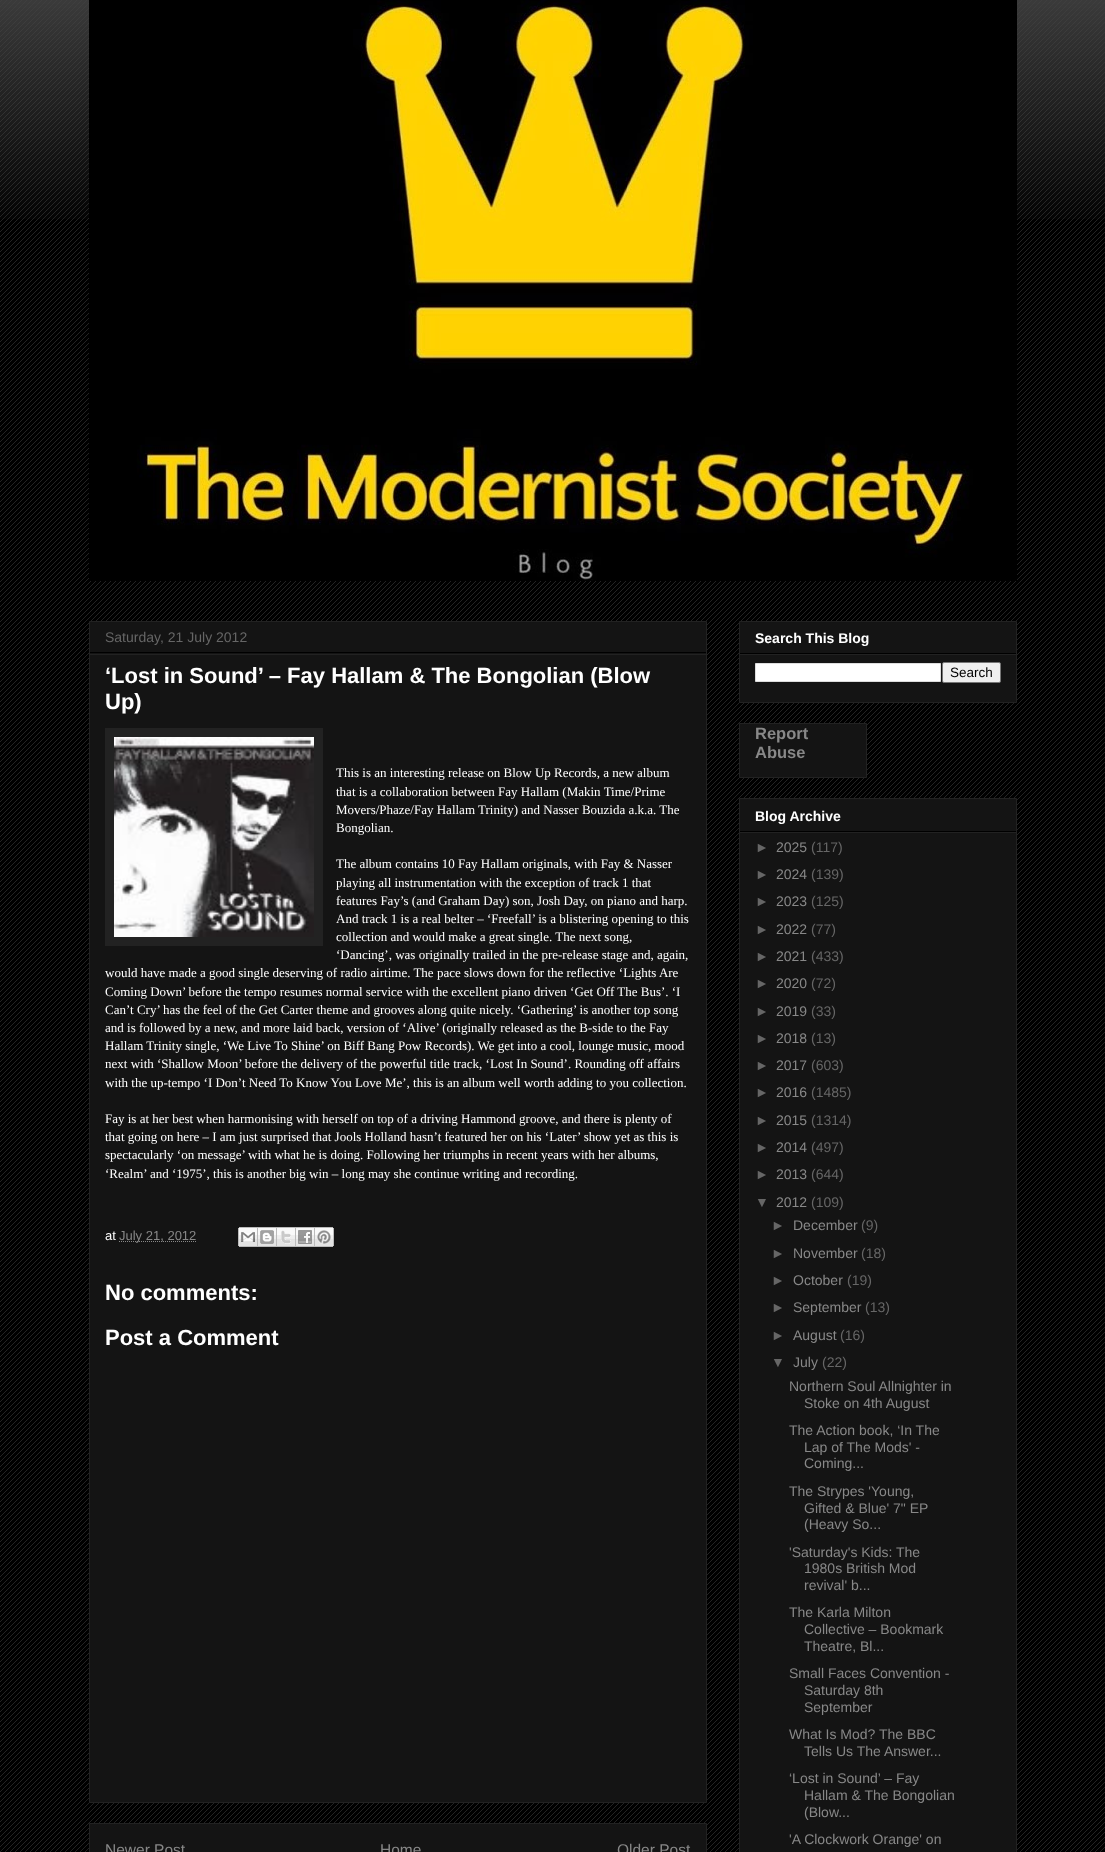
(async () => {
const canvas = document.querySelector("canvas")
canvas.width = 1105
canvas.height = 1852
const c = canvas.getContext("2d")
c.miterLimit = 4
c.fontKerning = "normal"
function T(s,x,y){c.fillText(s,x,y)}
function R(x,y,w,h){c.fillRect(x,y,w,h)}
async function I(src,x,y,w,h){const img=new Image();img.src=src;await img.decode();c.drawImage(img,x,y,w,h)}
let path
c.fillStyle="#000"
R(0,0,1105,1852)
await I("1.png",0,0,1105,1852)
await I("2.png",0,0,1105,219)
await I("3.png",89,0,928,581)
c.fillStyle="#141414"
c.beginPath()
c.rect(89.5,621.5,617,1181)
c.fill()
c.strokeStyle="#222"
c.stroke()
c.fillStyle="#000"
R(90,652,616,1)
c.font="14px Liberation Sans"
c.fillStyle="#666"
T("Saturday, 21 July 2012",105,642)
c.fillStyle="#222"
R(90,654,616,1)
c.font="bold 22px Liberation Sans"
c.fillStyle="#fff"
T("‘Lost in Sound’ – Fay Hallam & The Bongolian (Blow",105,683)
T("Up)",105,709)
c.fillStyle="#222"
R(105,728,218,218)
await I("4.png",114,737,200,200)
c.font="13px Liberation Serif"
c.fillStyle="#fff"
T("This is an interesting release on Blow Up Records, a new album",336,777)
T("that is a collaboration between Fay Hallam (Makin Time/Prime",336,796)
T("Movers/Phaze/Fay Hallam Trinity) and Nasser Bouzida a.k.a. The",336,814)
T("Bongolian.",336,832)
T("The album contains 10 Fay Hallam originals, with Fay & Nasser",336,868)
T("playing all instrumentation with the exception of track 1 that",336,887)
T("features Fay’s (and Graham Day) son, Josh Day, on piano and harp.",336,905)
T("And track 1 is a real belter – ‘Freefall’ is a blistering opening to this",336,923)
T("collection and would make a great single. The next song,",336,941)
T("‘Dancing’, was originally trailed in the pre-release stage and, again,",336,959)
T("would have made a good single deserving of radio airtime. The pace slows down for the reflective ‘Lights Are",105,977)
T("Coming Down’ before the tempo resumes normal service with the excellent piano driven ‘Get Off The Bus’. ‘I",105,996)
T("Can’t Cry’ has the feel of the Get Carter theme and grooves along quite nicely. ‘Gathering’ is another top song",105,1014)
T("and is followed by a new, and more laid back, version of ‘Alive’ (originally released as the B-side to the Fay",105,1032)
T("Hallam Trinity single, ‘We Live To Shine’ on Biff Bang Pow Records). We get into a cool, lounge music, mood",105,1050)
T("next with ‘Shallow Moon’ before the delivery of the powerful title track, ‘Lost In Sound’. Rounding off affairs",105,1068)
T("with the up-tempo ‘I Don’t Need To Know You Love Me’, this is an album well worth adding to you collection.",105,1087)
T("Fay is at her best when harmonising with herself on top of a driving Hammond groove, and there is plenty of",105,1123)
T("that going on here – I am just surprised that Jools Holland hasn’t featured her on his ‘Later’ show yet as this is",105,1141)
T("spectacularly ‘on message’ with what he is doing. Following her triumphs in recent years with her albums,",105,1159)
T("‘Realm’ and ‘1975’, this is another big win – long may she continue writing and recording.",105,1178)
c.font="13px Liberation Sans"
T("at",105,1240)
path = new Path2D("M119 1241.5h77.5")
c.strokeStyle="#888"
c.setLineDash([1,1])
c.stroke(path)
c.fillStyle="#888"
T("July 21, 2012",119,1240)
await I("5.png",238,1227,20,20)
await I("6.png",258,1227,19,20)
await I("7.png",277,1227,19,20)
await I("8.png",296,1227,19,20)
await I("9.png",315,1227,19,20)
c.font="bold 22px Liberation Sans"
c.fillStyle="#fff"
T("No comments:",105,1300)
T("Post a Comment",105,1345)
c.fillStyle="#141414"
c.beginPath()
c.rect(89.5,1823.5,617,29)
c.fill()
c.strokeStyle="#222"
c.setLineDash([])
c.stroke()
c.font="15.5px Liberation Sans"
c.fillStyle="#888"
T("Newer Post",105,1855)
T("Home",380,1855)
T("Older Post",617,1855)
c.fillStyle="#141414"
c.beginPath()
c.rect(739.5,621.5,277,81)
c.fill()
c.stroke()
c.fillStyle="#000"
R(740,653,276,1)
c.font="bold 14px Liberation Sans"
c.fillStyle="#fff"
T("Search This Blog",755,643)
c.fillStyle="#222"
R(740,654,276,1)
c.fillStyle="#fff"
c.beginPath()
c.rect(755.5,663.5,185,18)
c.fill()
c.strokeStyle="#ddd"
c.stroke()
c.fillStyle="#efefef"
c.beginPath()
c.roundRect(942.5,662.5,58,20,1.5)
c.fill()
c.strokeStyle="#767676"
c.stroke()
c.font="13.5px Liberation Sans"
c.fillStyle="#000"
T("Search",950,677)
c.fillStyle="#141414"
c.beginPath()
c.rect(739.5,723.5,127,54)
c.fill()
c.strokeStyle="#222"
c.stroke()
c.font="bold 16.5px Liberation Sans"
c.fillStyle="#888"
T("Report",755,739)
T("Abuse",755,758)
c.fillStyle="#141414"
c.beginPath()
c.rect(739.5,798.5,277,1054)
c.fill()
c.stroke()
c.fillStyle="#000"
R(740,831,276,1)
c.font="bold 14px Liberation Sans"
c.fillStyle="#fff"
T("Blog Archive",755,821)
c.fillStyle="#222"
R(740,832,276,1)
c.font="14px Liberation Sans"
c.fillStyle="#666"
T("►",755,852)
c.fillStyle="#888"
T("2025",776,852)
c.fillStyle="#666"
T("(117)",811,852)
T("►",755,879)
c.fillStyle="#888"
T("2024",776,879)
c.fillStyle="#666"
T("(139)",811,879)
T("►",755,906)
c.fillStyle="#888"
T("2023",776,906)
c.fillStyle="#666"
T("(125)",811,906)
T("►",755,934)
c.fillStyle="#888"
T("2022",776,934)
c.fillStyle="#666"
T("(77)",811,934)
T("►",755,961)
c.fillStyle="#888"
T("2021",776,961)
c.fillStyle="#666"
T("(433)",811,961)
T("►",755,988)
c.fillStyle="#888"
T("2020",776,988)
c.fillStyle="#666"
T("(72)",811,988)
T("►",755,1016)
c.fillStyle="#888"
T("2019",776,1016)
c.fillStyle="#666"
T("(33)",811,1016)
T("►",755,1043)
c.fillStyle="#888"
T("2018",776,1043)
c.fillStyle="#666"
T("(13)",811,1043)
T("►",755,1070)
c.fillStyle="#888"
T("2017",776,1070)
c.fillStyle="#666"
T("(603)",811,1070)
T("►",755,1097)
c.fillStyle="#888"
T("2016",776,1097)
c.fillStyle="#666"
T("(1485)",811,1097)
T("►",755,1125)
c.fillStyle="#888"
T("2015",776,1125)
c.fillStyle="#666"
T("(1314)",811,1125)
T("►",755,1152)
c.fillStyle="#888"
T("2014",776,1152)
c.fillStyle="#666"
T("(497)",811,1152)
T("►",755,1179)
c.fillStyle="#888"
T("2013",776,1179)
c.fillStyle="#666"
T("(644)",811,1179)
T("▼",755,1207)
c.fillStyle="#888"
T("2012",776,1207)
c.fillStyle="#666"
T("(109)",811,1207)
T("►",771,1230)
c.fillStyle="#888"
T("December",793,1230)
c.fillStyle="#666"
T("(9)",861,1230)
T("►",771,1258)
c.fillStyle="#888"
T("November",793,1258)
c.fillStyle="#666"
T("(18)",861,1258)
T("►",771,1285)
c.fillStyle="#888"
T("October",793,1285)
c.fillStyle="#666"
T("(19)",847,1285)
T("►",771,1312)
c.fillStyle="#888"
T("September",793,1312)
c.fillStyle="#666"
T("(13)",865,1312)
T("►",771,1340)
c.fillStyle="#888"
T("August",793,1340)
c.fillStyle="#666"
T("(16)",840,1340)
T("▼",771,1367)
c.fillStyle="#888"
T("July",793,1367)
c.fillStyle="#666"
T("(22)",822,1367)
c.fillStyle="#888"
T("Northern Soul Allnighter in",789,1391)
T("Stoke on 4th August",804,1408)
T("The Action book, ‘In The",789,1435)
T("Lap of The Mods' -",804,1452)
T("Coming...",804,1468)
T("The Strypes 'Young,",789,1496)
T("Gifted & Blue' 7\" EP",804,1513)
T("(Heavy So...",804,1529)
T("'Saturday's Kids: The",789,1557)
T("1980s British Mod",804,1573)
T("revival' b...",804,1590)
T("The Karla Milton",789,1617)
T("Collective – Bookmark",804,1634)
T("Theatre, Bl...",804,1651)
T("Small Faces Convention -",789,1678)
T("Saturday 8th",804,1695)
T("September",804,1712)
T("What Is Mod? The BBC",789,1739)
T("Tells Us The Answer...",804,1756)
T("‘Lost in Sound’ – Fay",789,1783)
T("Hallam & The Bongolian",804,1800)
T("(Blow...",804,1817)
T("'A Clockwork Orange' on",789,1844)
})()
